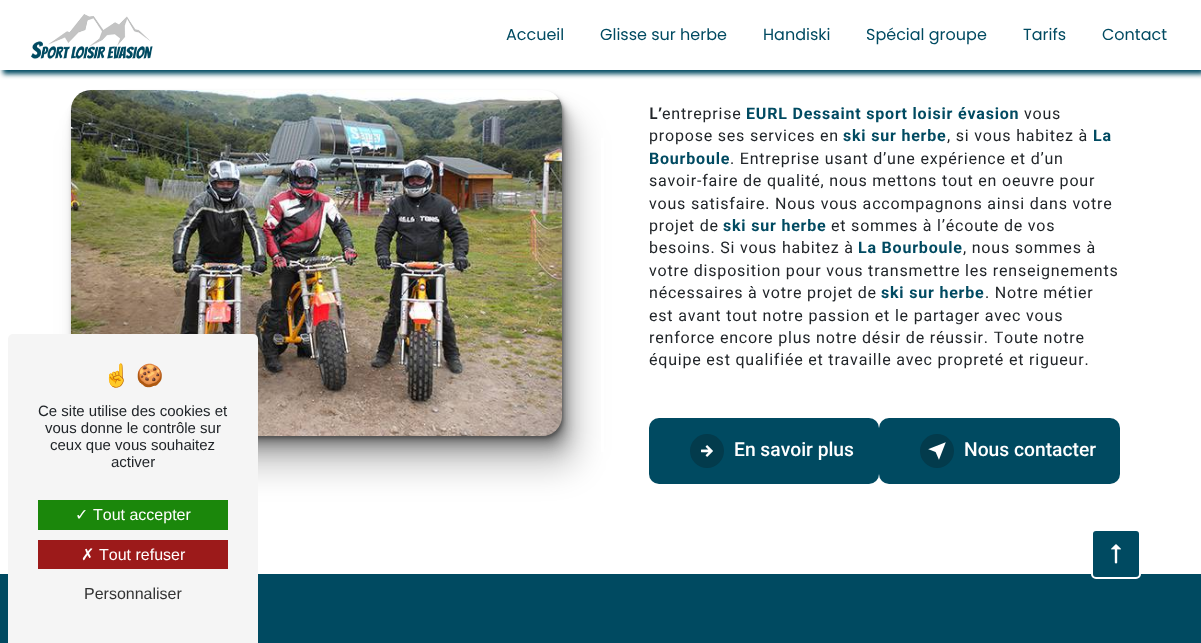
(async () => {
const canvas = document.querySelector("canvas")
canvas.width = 1201
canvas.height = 643
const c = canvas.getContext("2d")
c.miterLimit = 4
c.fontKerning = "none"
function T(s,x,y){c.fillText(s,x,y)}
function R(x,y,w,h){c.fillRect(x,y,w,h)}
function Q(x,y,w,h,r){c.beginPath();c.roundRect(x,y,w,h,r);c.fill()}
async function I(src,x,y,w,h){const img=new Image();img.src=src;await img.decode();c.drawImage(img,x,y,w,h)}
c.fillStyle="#fff"
R(0,0,1201,643)
c.fillStyle="#00000033"
c.filter="blur(16px)"
c.beginPath()
c.roundRect(87,122,491,346,20)
c.fill()
c.filter="none"
c.filter="blur(8px)"
c.beginPath()
c.roundRect(79,106,491,346,20)
c.fill()
c.filter="none"
c.filter="blur(4px)"
c.beginPath()
c.roundRect(75,98,491,346,20)
c.fill()
c.filter="none"
c.filter="blur(2px)"
c.beginPath()
c.roundRect(73,94,491,346,20)
c.fill()
c.filter="none"
c.filter="blur(1px)"
c.beginPath()
c.roundRect(72,92,491,346,20)
c.fill()
c.filter="none"
await I("2.png",71,90,491,346)
c.fillStyle="#004a61"
R(0,574,1201,69)
c.fillStyle="#f5f5f5"
c.beginPath()
c.roundRect(8,334,250,309,[5,5,0,0])
c.fill()
c.font="22px Noto Color Emoji"
c.fillStyle="#212529"
T("☝",103,383)
T("🍪",136,383)
c.font="15px Liberation Sans"
T("Ce site utilise des cookies et",38,416)
T("vous donne le contrôle sur",45,433)
T("ceux que vous souhaitez",50,450)
T("activer",111,467)
c.fillStyle="#1b870b"
R(38,500,190,30)
c.font="16px DejaVu Sans"
c.fillStyle="#fff"
T("✓",75,520)
c.font="16px Liberation Sans"
T("Tout accepter",93,520)
c.fillStyle="#9c1a1a"
R(38,540,190,29)
c.font="16px DejaVu Sans"
c.fillStyle="#fff"
T("✗",81,560)
c.font="16px Liberation Sans"
T("Tout refuser",99,560)
c.fillStyle="#333"
T("Personnaliser",84,599)
c.fillStyle="#004a61"
c.filter="blur(2.5px)"
c.beginPath()
c.rect(3,4,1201,70)
c.fill()
c.filter="none"
c.fillStyle="#fff"
R(0,0,1201,70)
await I("1.png",31,14,122,46)
c.font="16px Poppins"
c.fillStyle="#004a61"
T("Accueil",506,40)
T("Glisse sur herbe",600,40)
T("Handiski",763,40)
T("Spécial groupe",866,40)
T("Tarifs",1023,40)
T("Contact",1102,40)
c.fillStyle="#fff"
R(601,138,3,314)
c.letterSpacing="0.8px"
c.font="600 16px Noto Sans"
c.fillStyle="#212529"
T("L’",649,119)
c.font="16px Roboto"
T("entreprise",662,119)
c.font="bold 16px Roboto"
c.fillStyle="#004a61"
T("EURL Dessaint sport loisir évasion",746,119)
c.font="16px Roboto"
c.fillStyle="#212529"
T("vous",1024,119)
T("propose ses services en",649,141)
c.font="bold 16px Roboto"
c.fillStyle="#004a61"
T("ski sur herbe",843,141)
c.font="16px Roboto"
c.fillStyle="#212529"
T(", si vous habitez à",947,141)
c.font="bold 16px Roboto"
c.fillStyle="#004a61"
T("La",1093,141)
T("Bourboule",649,164)
c.font="16px Roboto"
c.fillStyle="#212529"
T(". Entreprise usant d’une expérience et d’un",730,164)
T("savoir-faire de qualité, nous mettons tout en oeuvre pour",649,186)
T("vous satisfaire. Nous vous accompagnons ainsi dans votre",649,209)
T("projet de",649,231)
c.font="bold 16px Roboto"
c.fillStyle="#004a61"
T("ski sur herbe",723,231)
c.font="16px Roboto"
c.fillStyle="#212529"
T("et sommes à l’écoute de vos",831,231)
T("besoins. Si vous habitez à",649,253)
c.font="bold 16px Roboto"
c.fillStyle="#004a61"
T("La Bourboule",858,253)
c.font="16px Roboto"
c.fillStyle="#212529"
T(", nous sommes à",963,253)
T("votre disposition pour vous transmettre les renseignements",649,276)
T("nécessaires à votre projet de",649,298)
c.font="bold 16px Roboto"
c.fillStyle="#004a61"
T("ski sur herbe",881,298)
c.font="16px Roboto"
c.fillStyle="#212529"
T(". Notre métier",985,298)
T("est avant tout notre passion et le partager avec vous",649,321)
T("renforce encore plus notre désir de réussir. Toute notre",649,343)
T("équipe est qualifiée et travaille avec propreté et rigueur.",649,365)
c.fillStyle="#004a61"
Q(649,418,230,66,10)
c.fillStyle="#033b4c"
c.beginPath()
c.arc(707,451,17,0,7)
c.fill()
await I("3.png",701,445,12,12)
c.letterSpacing="0px"
c.font="500 19.25px Roboto"
c.fillStyle="#fff"
T("En savoir plus",734,456)
c.fillStyle="#004a61"
Q(879,418,241,66,10)
c.fillStyle="#033b4c"
c.beginPath()
c.arc(937,451,17,0,7)
c.fill()
await I("4.png",928,442,18,18)
c.fillStyle="#fff"
T("Nous contacter",964,456)
c.fillStyle="#004a61"
c.beginPath()
c.roundRect(1092,530,48,48,4)
c.fill()
c.strokeStyle="#fff"
c.lineWidth=2
c.stroke()
await I("5.png",1111,544,10,20)
})()
